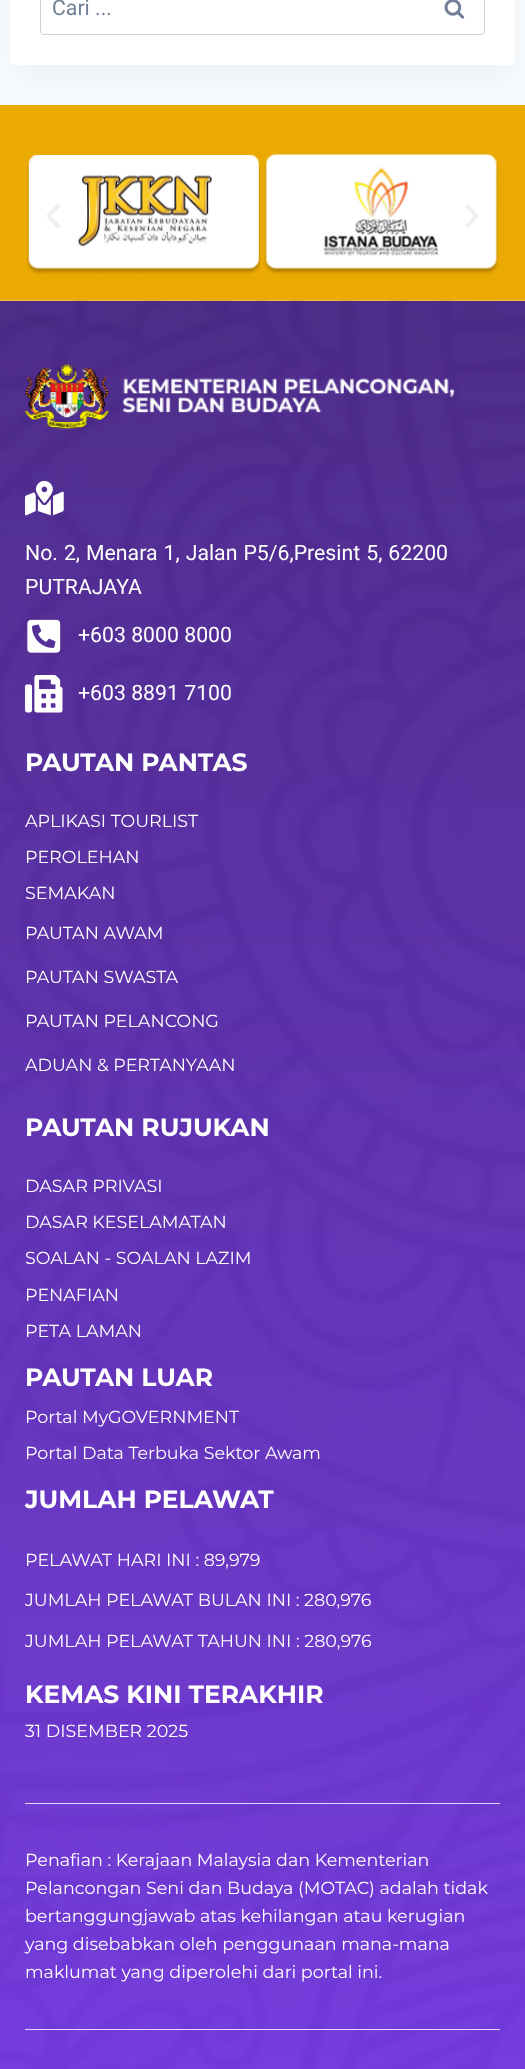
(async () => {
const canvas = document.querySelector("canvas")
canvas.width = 525
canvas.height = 2069
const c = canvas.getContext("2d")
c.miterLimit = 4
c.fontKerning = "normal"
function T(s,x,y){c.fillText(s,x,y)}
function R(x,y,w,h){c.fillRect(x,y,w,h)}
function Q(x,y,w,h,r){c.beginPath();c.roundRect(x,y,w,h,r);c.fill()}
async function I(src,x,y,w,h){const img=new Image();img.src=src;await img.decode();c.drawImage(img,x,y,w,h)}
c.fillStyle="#f7fafc"
R(0,0,525,2069)
c.fillStyle="#0000000d"
c.filter="blur(15.5px)"
c.beginPath()
c.rect(23,-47,480,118)
c.fill()
c.filter="none"
c.fillStyle="#fff"
Q(10,-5,505,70,5)
c.beginPath()
c.roundRect(40.5,-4.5,444,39,3.5)
c.strokeStyle="#cbd5e0"
c.stroke()
c.font="21.25px Roboto"
c.fillStyle="#718096"
T("Cari ...",52,15)
await I("1.png",444,0,21,19)
c.fillStyle="#eaaa01"
R(0,105,525,196)
await I("2.png",27,155,234,119)
await I("3.png",264,154,235,120)
await I("4.png",46,204,14,24)
await I("5.png",465,204,14,24)
await I("6.png",0,300,525,1769)
await I("7.png",25,363,430,66)
await I("8.png",25,480,39,36)
c.wordSpacing="0.75px"
c.fillStyle="#fff"
T("No. 2, Menara 1, Jalan P5/6,Presint 5, 62200",25,560)
c.wordSpacing="0px"
T("PUTRAJAYA",25,594)
await I("9.png",27,619,34,34)
T("+603 8000 8000",78,642)
await I("10.png",25,675,38,38)
T("+603 8891 7100",78,700)
c.font="bold 25px Montserrat"
T("PAUTAN PANTAS",25,771)
c.font="17.5px Montserrat"
T("APLIKASI TOURLIST",25,827)
T("PEROLEHAN",25,863)
T("SEMAKAN",25,899)
T("PAUTAN AWAM",25,939)
T("PAUTAN SWASTA",25,983)
T("PAUTAN PELANCONG",25,1027)
T("ADUAN & PERTANYAAN",25,1071)
c.font="bold 25px Montserrat"
T("PAUTAN RUJUKAN",25,1136)
c.font="17.5px Montserrat"
T("DASAR PRIVASI",25,1192)
T("DASAR KESELAMATAN",25,1228)
T("SOALAN - SOALAN LAZIM",25,1264)
T("PENAFIAN",25,1301)
T("PETA LAMAN",25,1337)
c.font="bold 25px Montserrat"
T("PAUTAN LUAR",25,1386)
c.font="17.5px Montserrat"
T("Portal MyGOVERNMENT",25,1423)
T("Portal Data Terbuka Sektor Awam",25,1459)
c.font="bold 25px Montserrat"
T("JUMLAH PELAWAT",25,1508)
c.font="17.5px Montserrat"
T("PELAWAT HARI INI : 89,979",25,1566)
T("JUMLAH PELAWAT BULAN INI : 280,976",25,1606)
T("JUMLAH PELAWAT TAHUN INI : 280,976",25,1647)
c.font="bold 25px Montserrat"
T("KEMAS KINI TERAKHIR",25,1703)
c.font="17.5px Montserrat"
T("31 DISEMBER 2025",25,1737)
c.fillStyle="#e2d7ff"
R(25,1803,475,1)
c.fillStyle="#fff"
T("Penafian : Kerajaan Malaysia dan Kementerian",25,1866)
T("Pelancongan Seni dan Budaya (MOTAC) adalah tidak",25,1894)
T("bertanggungjawab atas kehilangan atau kerugian",25,1922)
T("yang disebabkan oleh penggunaan mana-mana",25,1950)
T("maklumat yang diperolehi dari portal ini.",25,1978)
c.fillStyle="#e2d7ff"
R(25,2029,475,1)
})()
